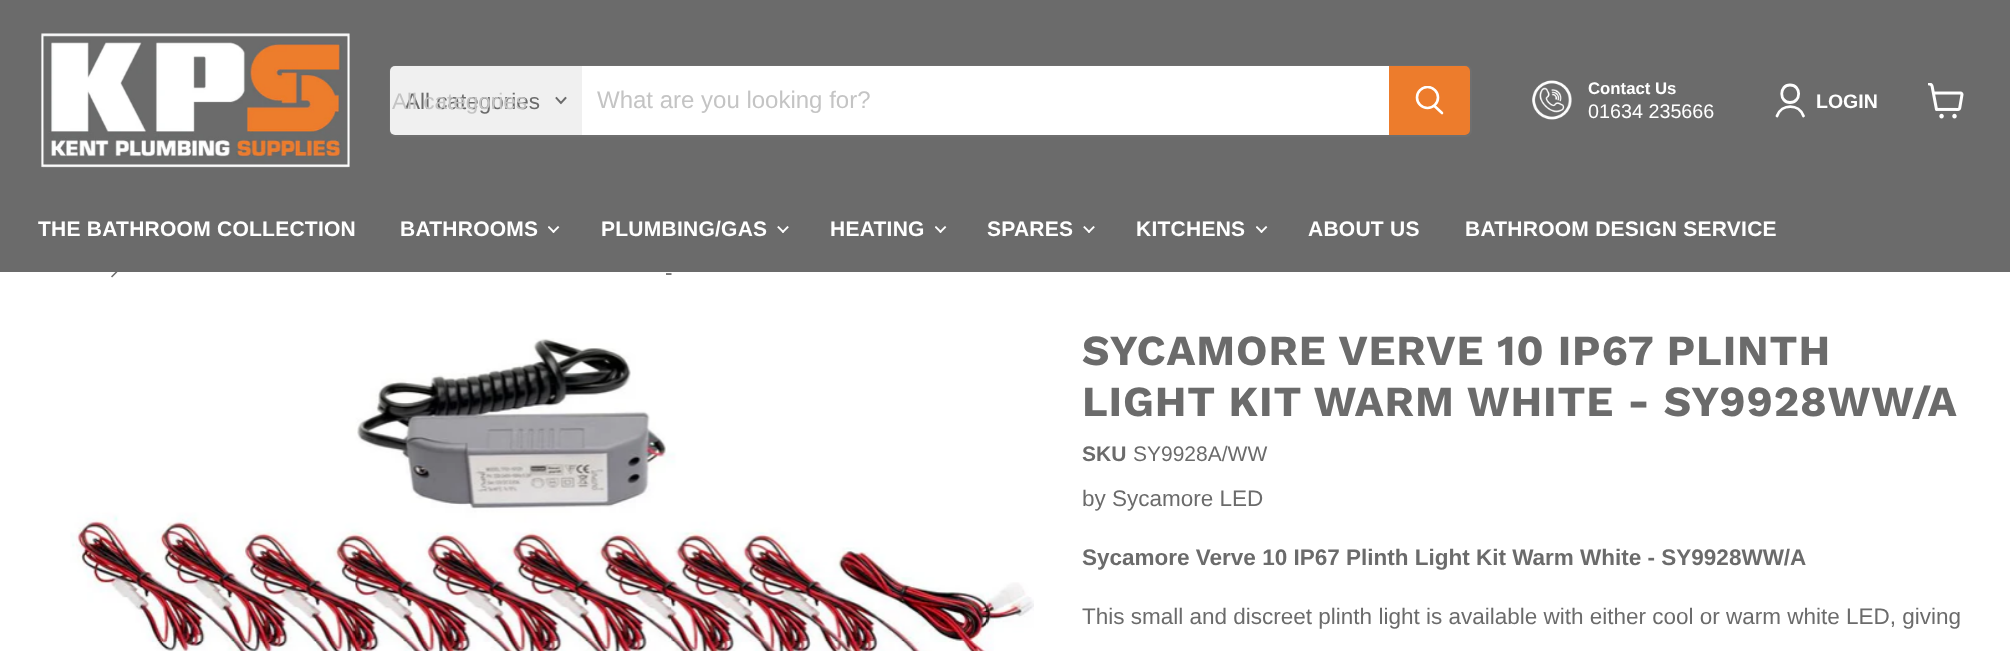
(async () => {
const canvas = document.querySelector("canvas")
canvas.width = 2010
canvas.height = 651
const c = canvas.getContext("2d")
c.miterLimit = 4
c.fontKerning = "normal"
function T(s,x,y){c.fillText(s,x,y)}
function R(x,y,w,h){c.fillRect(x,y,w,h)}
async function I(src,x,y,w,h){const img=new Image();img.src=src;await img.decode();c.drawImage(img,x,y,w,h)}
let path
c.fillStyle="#fff"
R(0,0,2010,651)
c.fillStyle="#6b6b6b"
R(0,0,2010,272)
await I("1.png",41,33,309,135)
c.beginPath()
c.roundRect(390,66,1081,70,5)
c.strokeStyle="#6f6f6f"
c.lineWidth=2
c.stroke()
c.fillStyle="#f0f0f0"
c.beginPath()
c.roundRect(390,66,192,69,[5,0,0,5])
c.fill()
c.font="22.5px Liberation Sans"
c.fillStyle="#6b6b6b"
T("All categories",405,109)
c.fillStyle="#c4c4c4"
T("All categories",392,109)
path = new Path2D("M561 103l4.5-5m-4.5 5l-4.5-5")
c.strokeStyle="#6b6b6b"
c.lineWidth=1.9
c.lineCap="square"
c.stroke(path)
c.fillStyle="#fff"
R(582,66,807,69)
c.font="24px Liberation Sans"
c.fillStyle="#c4c4c4"
T("What are you looking for?",597,108)
c.fillStyle="#ed7c2c"
c.beginPath()
c.roundRect(1390,67,79,67,[0,4,4,0])
c.fill()
c.strokeStyle="#ed7c2c"
c.lineWidth=2
c.stroke()
path = new Path2D("M1442 113l-7.5-7")
c.strokeStyle="#fff"
c.lineWidth=2.6
c.lineCap="round"
c.stroke(path)
c.save()
c.beginPath()
c.rect(1415,86,30,31)
c.clip()
c.beginPath()
c.arc(1427.5,97.5,10.5,0,7)
c.stroke()
c.restore()
await I("2.png",1532,80,40,40)
c.font="bold 16.75px Liberation Sans"
c.fillStyle="#fff"
T("Contact Us",1588,94)
c.font="19.75px Liberation Sans"
T("01634 235666",1588,118)
path = new Path2D("M1790 102.5c11.5 0 11.5-17.5 0-17.5c-11 0-11 17.5 0 17.5zm13.5 13.5c-4.5-12.5-22-12.5-26.5 0")
c.lineWidth=2.8
c.lineJoin="round"
c.stroke(path)
c.font="bold 19.5px Liberation Sans"
T("LOGIN",1816,108)
await I("3.png",1928,83,36,36)
c.letterSpacing="0.25px"
c.font="bold 21px Liberation Sans"
T("THE BATHROOM COLLECTION",38,236)
T("BATHROOMS",400,236)
await I("4.png",548,226,12,7)
T("PLUMBING/GAS",601,236)
await I("5.png",777,226,12,7)
T("HEATING",830,236)
await I("4.png",935,226,12,7)
T("SPARES",987,236)
await I("5.png",1083,226,12,7)
T("KITCHENS",1136,236)
await I("4.png",1256,226,12,7)
T("ABOUT US",1308,236)
T("BATHROOM DESIGN SERVICE",1465,236)
await I("6.png",111,272,7,6)
c.letterSpacing="0px"
c.font="22.5px Liberation Sans"
c.fillStyle="#6b6b6b"
T("-",665,280)
await I("7.png",70,338,964,313)
c.letterSpacing="0.85px"
c.font="bold 42.75px Work Sans"
T("SYCAMORE VERVE 10 IP67 PLINTH",1082,365)
T("LIGHT KIT WARM WHITE - SY9928WW/A",1082,416)
c.letterSpacing="0px"
c.font="bold 21px Liberation Sans"
T("SKU",1082,461)
c.font="21px Liberation Sans"
T("SY9928A/WW",1133,461)
c.font="22.5px Liberation Sans"
T("by Sycamore LED",1082,506)
c.font="bold 22.5px Liberation Sans"
T("Sycamore Verve 10 IP67 Plinth Light Kit Warm White - SY9928WW/A",1082,565)
c.font="22.5px Liberation Sans"
T("This small and discreet plinth light is available with either cool or warm white LED, giving",1082,624)
})()
